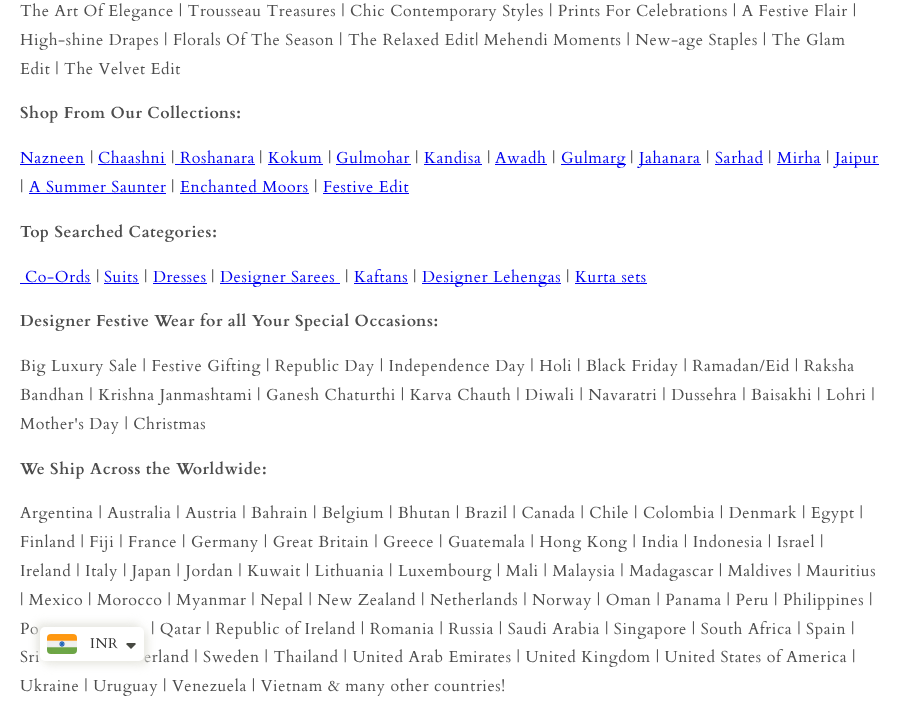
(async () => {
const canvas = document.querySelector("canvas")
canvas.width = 899
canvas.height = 704
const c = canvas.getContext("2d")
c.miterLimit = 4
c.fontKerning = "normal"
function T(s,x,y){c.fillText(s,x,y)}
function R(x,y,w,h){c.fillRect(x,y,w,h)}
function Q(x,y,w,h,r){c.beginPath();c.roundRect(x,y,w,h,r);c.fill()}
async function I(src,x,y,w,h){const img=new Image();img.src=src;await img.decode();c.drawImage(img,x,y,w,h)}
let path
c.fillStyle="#fff"
R(0,0,899,704)
c.letterSpacing="0.6px"
c.font="16px Cardo"
c.fillStyle="#4d4d4d"
T("The Art Of Elegance | Trousseau Treasures | Chic Contemporary Styles | Prints For Celebrations | A Festive Flair |",20,16)
T("High-shine Drapes | Florals Of The Season | The Relaxed Edit| Mehendi Moments | New-age Staples | The Glam",20,45)
T("Edit | The Velvet Edit",20,74)
c.font="bold 16px Cardo"
T("Shop From Our Collections:",20,118)
c.font="16px Cardo"
c.fillStyle="#00e"
T("Nazneen",20,163)
R(20,164,65,1)
c.fillStyle="#4d4d4d"
T("|",90,163)
c.fillStyle="#00e"
T("Chaashni",98,163)
R(98,164,68,1)
c.fillStyle="#4d4d4d"
T("|",171,163)
c.fillStyle="#00e"
T("Roshanara",180,163)
R(175,164,80,1)
c.fillStyle="#4d4d4d"
T("|",259,163)
c.fillStyle="#00e"
T("Kokum",268,163)
R(268,164,55,1)
c.fillStyle="#4d4d4d"
T("|",328,163)
c.fillStyle="#00e"
T("Gulmohar",336,163)
R(336,164,75,1)
c.fillStyle="#4d4d4d"
T("|",415,163)
c.fillStyle="#00e"
T("Kandisa",424,163)
R(424,164,58,1)
c.fillStyle="#4d4d4d"
T("|",487,163)
c.fillStyle="#00e"
T("Awadh",495,163)
R(495,164,52,1)
c.fillStyle="#4d4d4d"
T("|",552,163)
c.fillStyle="#00e"
R(561,164,65,1)
T("Gulmarg",561,163)
c.fillStyle="#4d4d4d"
T("|",630,163)
c.fillStyle="#00e"
R(639,164,62,1)
T("Jahanara",639,163)
c.fillStyle="#4d4d4d"
T("|",706,163)
c.fillStyle="#00e"
T("Sarhad",715,163)
R(715,164,48,1)
c.fillStyle="#4d4d4d"
T("|",768,163)
c.fillStyle="#00e"
T("Mirha",777,163)
R(777,164,44,1)
c.fillStyle="#4d4d4d"
T("|",826,163)
c.fillStyle="#00e"
R(835,164,44,1)
T("Jaipur",835,163)
c.fillStyle="#4d4d4d"
T("|",20,192)
c.fillStyle="#00e"
T("A Summer Saunter",29,192)
R(29,193,137,1)
c.fillStyle="#4d4d4d"
T("|",171,192)
c.fillStyle="#00e"
T("Enchanted Moors",180,192)
R(180,193,129,1)
c.fillStyle="#4d4d4d"
T("|",314,192)
c.fillStyle="#00e"
T("Festive Edit",323,192)
R(323,193,86,1)
c.font="bold 16px Cardo"
c.fillStyle="#4d4d4d"
T("Top Searched Categories:",20,237)
c.font="16px Cardo"
c.fillStyle="#00e"
T("Co-Ords",25,282)
R(20,283,71,1)
c.fillStyle="#4d4d4d"
T("|",96,282)
c.fillStyle="#00e"
T("Suits",104,282)
R(104,283,35,1)
c.fillStyle="#4d4d4d"
T("|",144,282)
c.fillStyle="#00e"
T("Dresses",153,282)
R(153,283,54,1)
c.fillStyle="#4d4d4d"
T("|",211,282)
c.fillStyle="#00e"
R(220,283,120,1)
T("Designer Sarees",220,282)
c.fillStyle="#4d4d4d"
T("|",345,282)
c.fillStyle="#00e"
T("Kaftans",354,282)
R(354,283,54,1)
c.fillStyle="#4d4d4d"
T("|",413,282)
c.fillStyle="#00e"
R(422,283,139,1)
T("Designer Lehengas",422,282)
c.fillStyle="#4d4d4d"
T("|",566,282)
c.fillStyle="#00e"
T("Kurta sets",575,282)
R(575,283,72,1)
c.font="bold 16px Cardo"
c.fillStyle="#4d4d4d"
T("Designer Festive Wear for all Your Special Occasions:",20,326)
c.font="16px Cardo"
T("Big Luxury Sale | Festive Gifting | Republic Day | Independence Day | Holi | Black Friday | Ramadan/Eid | Raksha",20,371)
T("Bandhan | Krishna Janmashtami | Ganesh Chaturthi | Karva Chauth | Diwali | Navaratri | Dussehra | Baisakhi | Lohri |",20,400)
T("Mother's Day | Christmas",20,429)
c.font="bold 16px Cardo"
T("We Ship Across the Worldwide:",20,474)
c.font="16px Cardo"
T("Argentina | Australia | Austria | Bahrain | Belgium | Bhutan | Brazil | Canada | Chile | Colombia | Denmark | Egypt |",20,518)
T("Finland | Fiji | France | Germany | Great Britain | Greece | Guatemala | Hong Kong | India | Indonesia | Israel |",20,547)
T("Ireland | Italy | Japan | Jordan | Kuwait | Lithuania | Luxembourg | Mali | Malaysia | Madagascar | Maldives | Mauritius",20,576)
T("| Mexico | Morocco | Myanmar | Nepal | New Zealand | Netherlands | Norway | Oman | Panama | Peru | Philippines |",20,605)
T("Po",20,634)
T("| Qatar | Republic of Ireland | Romania | Russia | Saudi Arabia | Singapore | South Africa | Spain |",151,634)
T("Sri",20,662)
T("erland | Sweden | Thailand | United Arab Emirates | United Kingdom | United States of America |",144,662)
T("Ukraine | Uruguay | Venezuela | Vietnam & many other countries!",20,691)
c.fillStyle="#e8e8e2"
c.filter="blur(4.5px)"
c.beginPath()
c.roundRect(36,623,104,34,5)
c.fill()
c.filter="none"
c.filter="blur(4.5px)"
c.beginPath()
c.roundRect(44,631,104,34,5)
c.fill()
c.filter="none"
c.fillStyle="#fff"
Q(40,627,104,34,5)
await I("1.png",47,634,30,20)
c.font="14px Cardo"
c.fillStyle="#333"
T("INR",90,648)
c.fillStyle="#474942"
path = new Path2D("M128 643c-1 0-1.5 .5-2 1l5 5l5-5l-1-1z")
c.fill(path)
})()
